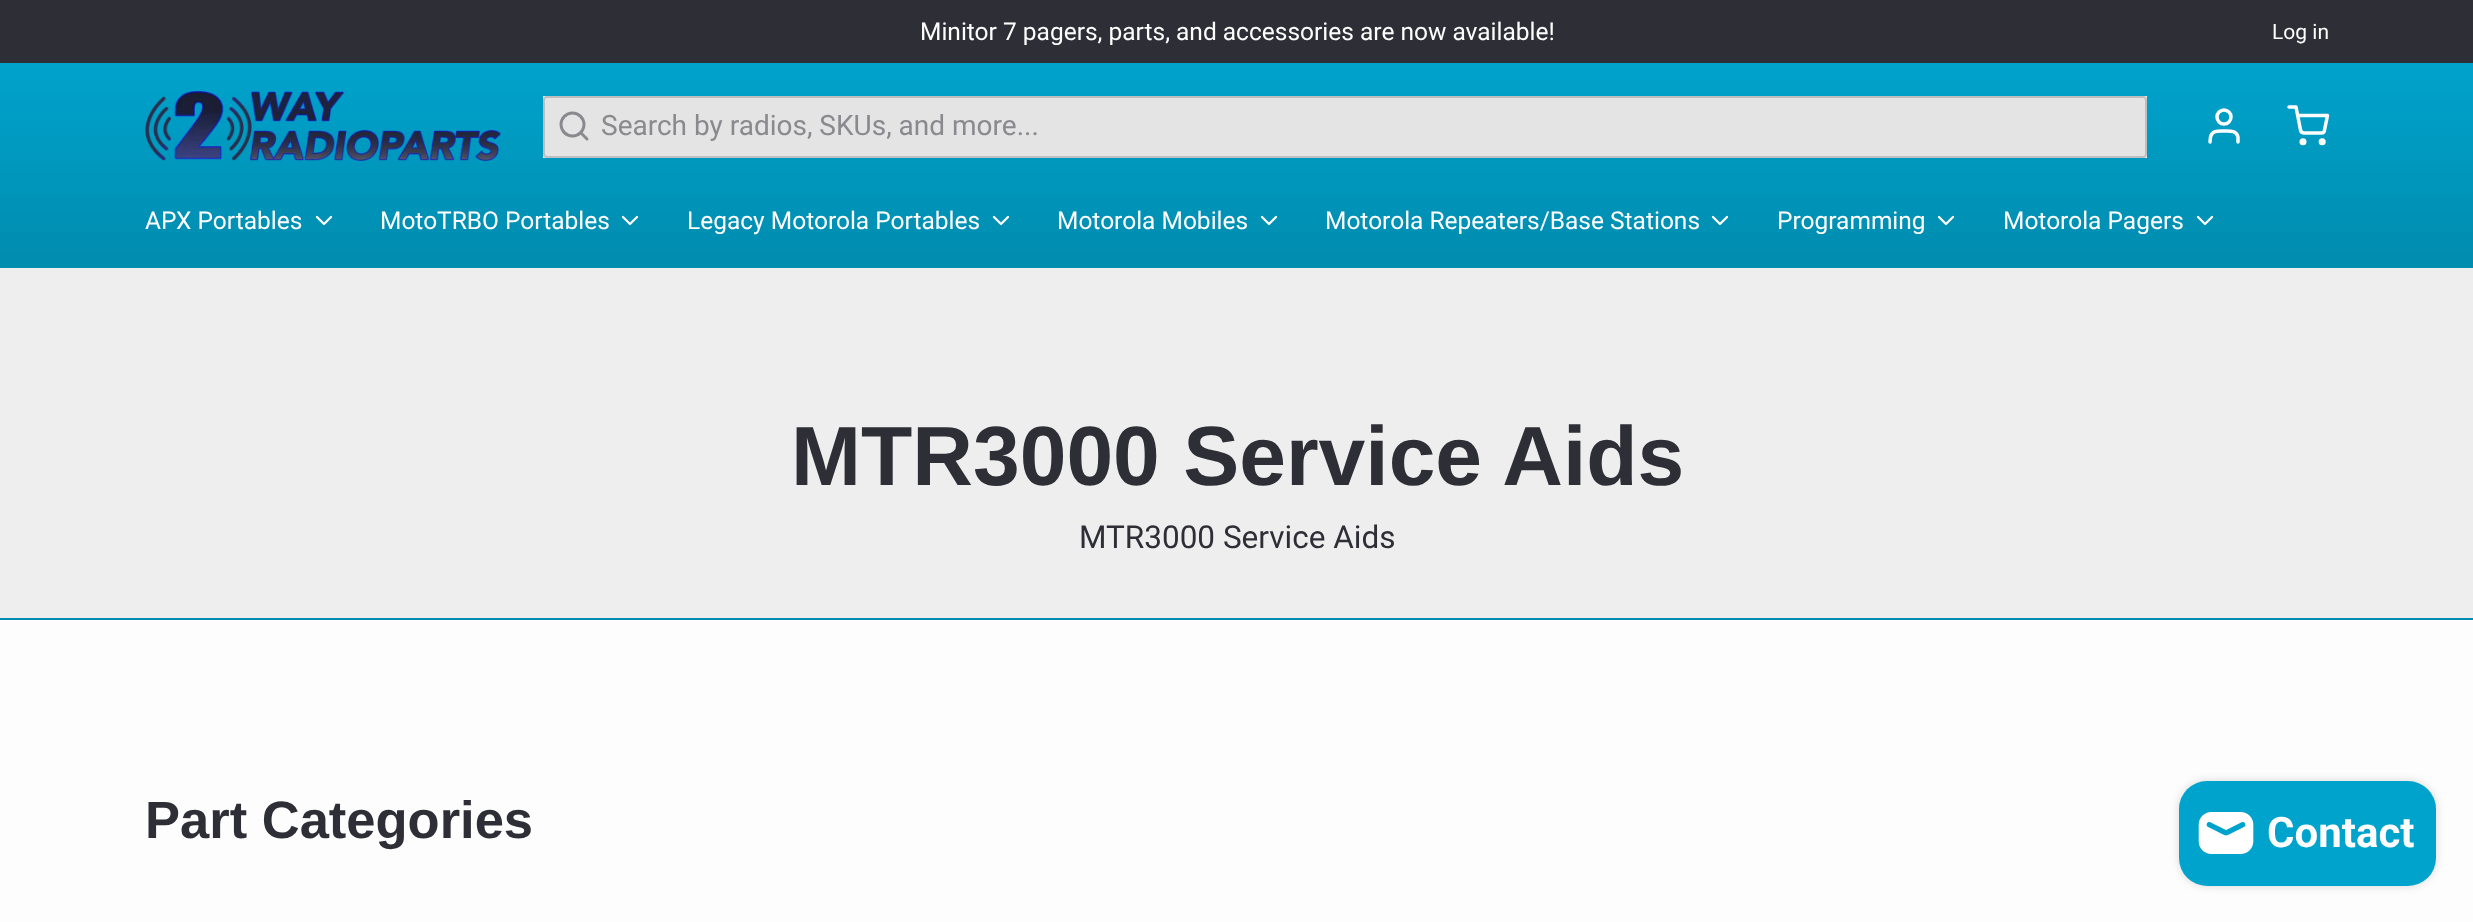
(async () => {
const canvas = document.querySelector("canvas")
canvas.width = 2473
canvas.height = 922
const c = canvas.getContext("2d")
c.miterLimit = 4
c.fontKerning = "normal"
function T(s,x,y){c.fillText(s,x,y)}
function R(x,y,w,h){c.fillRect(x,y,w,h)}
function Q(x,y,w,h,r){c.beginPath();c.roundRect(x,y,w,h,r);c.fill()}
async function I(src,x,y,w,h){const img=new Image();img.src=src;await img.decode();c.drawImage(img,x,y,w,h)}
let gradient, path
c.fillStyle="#fdfdfd"
R(0,0,2473,922)
c.fillStyle="#2e2e36"
R(0,0,2473,63)
c.font="24.5px Roboto"
c.fillStyle="#fdfdfd"
T("Minitor 7 pagers, parts, and accessories are now available!",920,40)
c.font="21px Roboto"
T("Log in",2272,39)
gradient = c.createLinearGradient(1237,63,1237,266)
gradient.addColorStop(0,"#00a3cc")
gradient.addColorStop(1,"#008caf")
c.fillStyle = gradient
R(0,63,2473,203)
c.fillStyle="#008caf"
R(0,266,2473,2)
await I("1.png",145,91,356,70)
c.fillStyle="#eee"
R(543,96,1604,62)
c.fillStyle="#e4e4e5"
Q(543,96,1604,62,4)
c.beginPath()
c.roundRect(544,97,1602,60,3)
c.strokeStyle="#2e2e3633"
c.lineWidth=2
c.stroke()
c.beginPath()
c.arc(572.5,124.5,11.5,0,7)
c.strokeStyle="#89898e"
c.lineWidth=2.9
c.stroke()
path = new Path2D("M587 139l-6-6")
c.lineCap="round"
c.lineJoin="round"
c.stroke(path)
c.font="28px Roboto"
c.fillStyle="#89898e"
T("Search by radios, SKUs, and more...",601,135)
path = new Path2D("M2238 142v-5c-1.5-7-8.5-6-14-6c-5 0-12-1-13.5 6l-.5 5")
c.strokeStyle="#fdfdfd"
c.lineWidth=3.5
c.stroke(path)
c.beginPath()
c.arc(2224,117,7,0,7)
c.stroke()
c.beginPath()
c.arc(2303,141.8,1.8,0,7)
c.stroke()
c.beginPath()
c.arc(2322.2,141.8,1.8,0,7)
c.stroke()
path = new Path2D("M2289 107h7l4.5 23c.5 2 2 3 3.5 3h17c2 0 3.5-1 3.5-3l3-14.5h-29.5")
c.stroke(path)
c.font="24.5px Roboto"
c.fillStyle="#fdfdfd"
T("APX Portables",145,229)
path = new Path2D("M317 217l7 7l7-7")
c.lineWidth=2.3
c.stroke(path)
T("MotoTRBO Portables",380,229)
path = new Path2D("M623 217l7 7l7-7")
c.stroke(path)
T("Legacy Motorola Portables",687,229)
path = new Path2D("M994 217l7 7l7-7")
c.stroke(path)
T("Motorola Mobiles",1057,229)
path = new Path2D("M1262 217l7 7l7-7")
c.stroke(path)
T("Motorola Repeaters/Base Stations",1325,229)
path = new Path2D("M1713 217l7 7l7-7")
c.stroke(path)
T("Programming",1777,229)
path = new Path2D("M1939 217l7 7l7-7")
c.stroke(path)
T("Motorola Pagers",2003,229)
path = new Path2D("M2198 217l7 7l7-7")
c.stroke(path)
c.fillStyle="#eee"
R(0,268,2473,350)
c.fillStyle="#008caf"
R(0,618,2473,2)
c.font="bold 84px Liberation Sans"
c.fillStyle="#2e2e36"
T("MTR3000 Service Aids",791,485)
c.font="31.5px Roboto"
T("MTR3000 Service Aids",1079,548)
c.font="bold 52.5px Liberation Sans"
T("Part Categories",145,838)
c.fillStyle="#00000026"
c.filter="blur(4.5px)"
c.beginPath()
c.roundRect(2179,781,257,105,28)
c.fill()
c.filter="none"
c.fillStyle="#00a3cc"
Q(2179,781,257,105,28)
await I("2.png",2198,812,56,42)
c.font="bold 42px Roboto"
c.fillStyle="#fdfdfd"
T("Contact",2267,847)
})()
